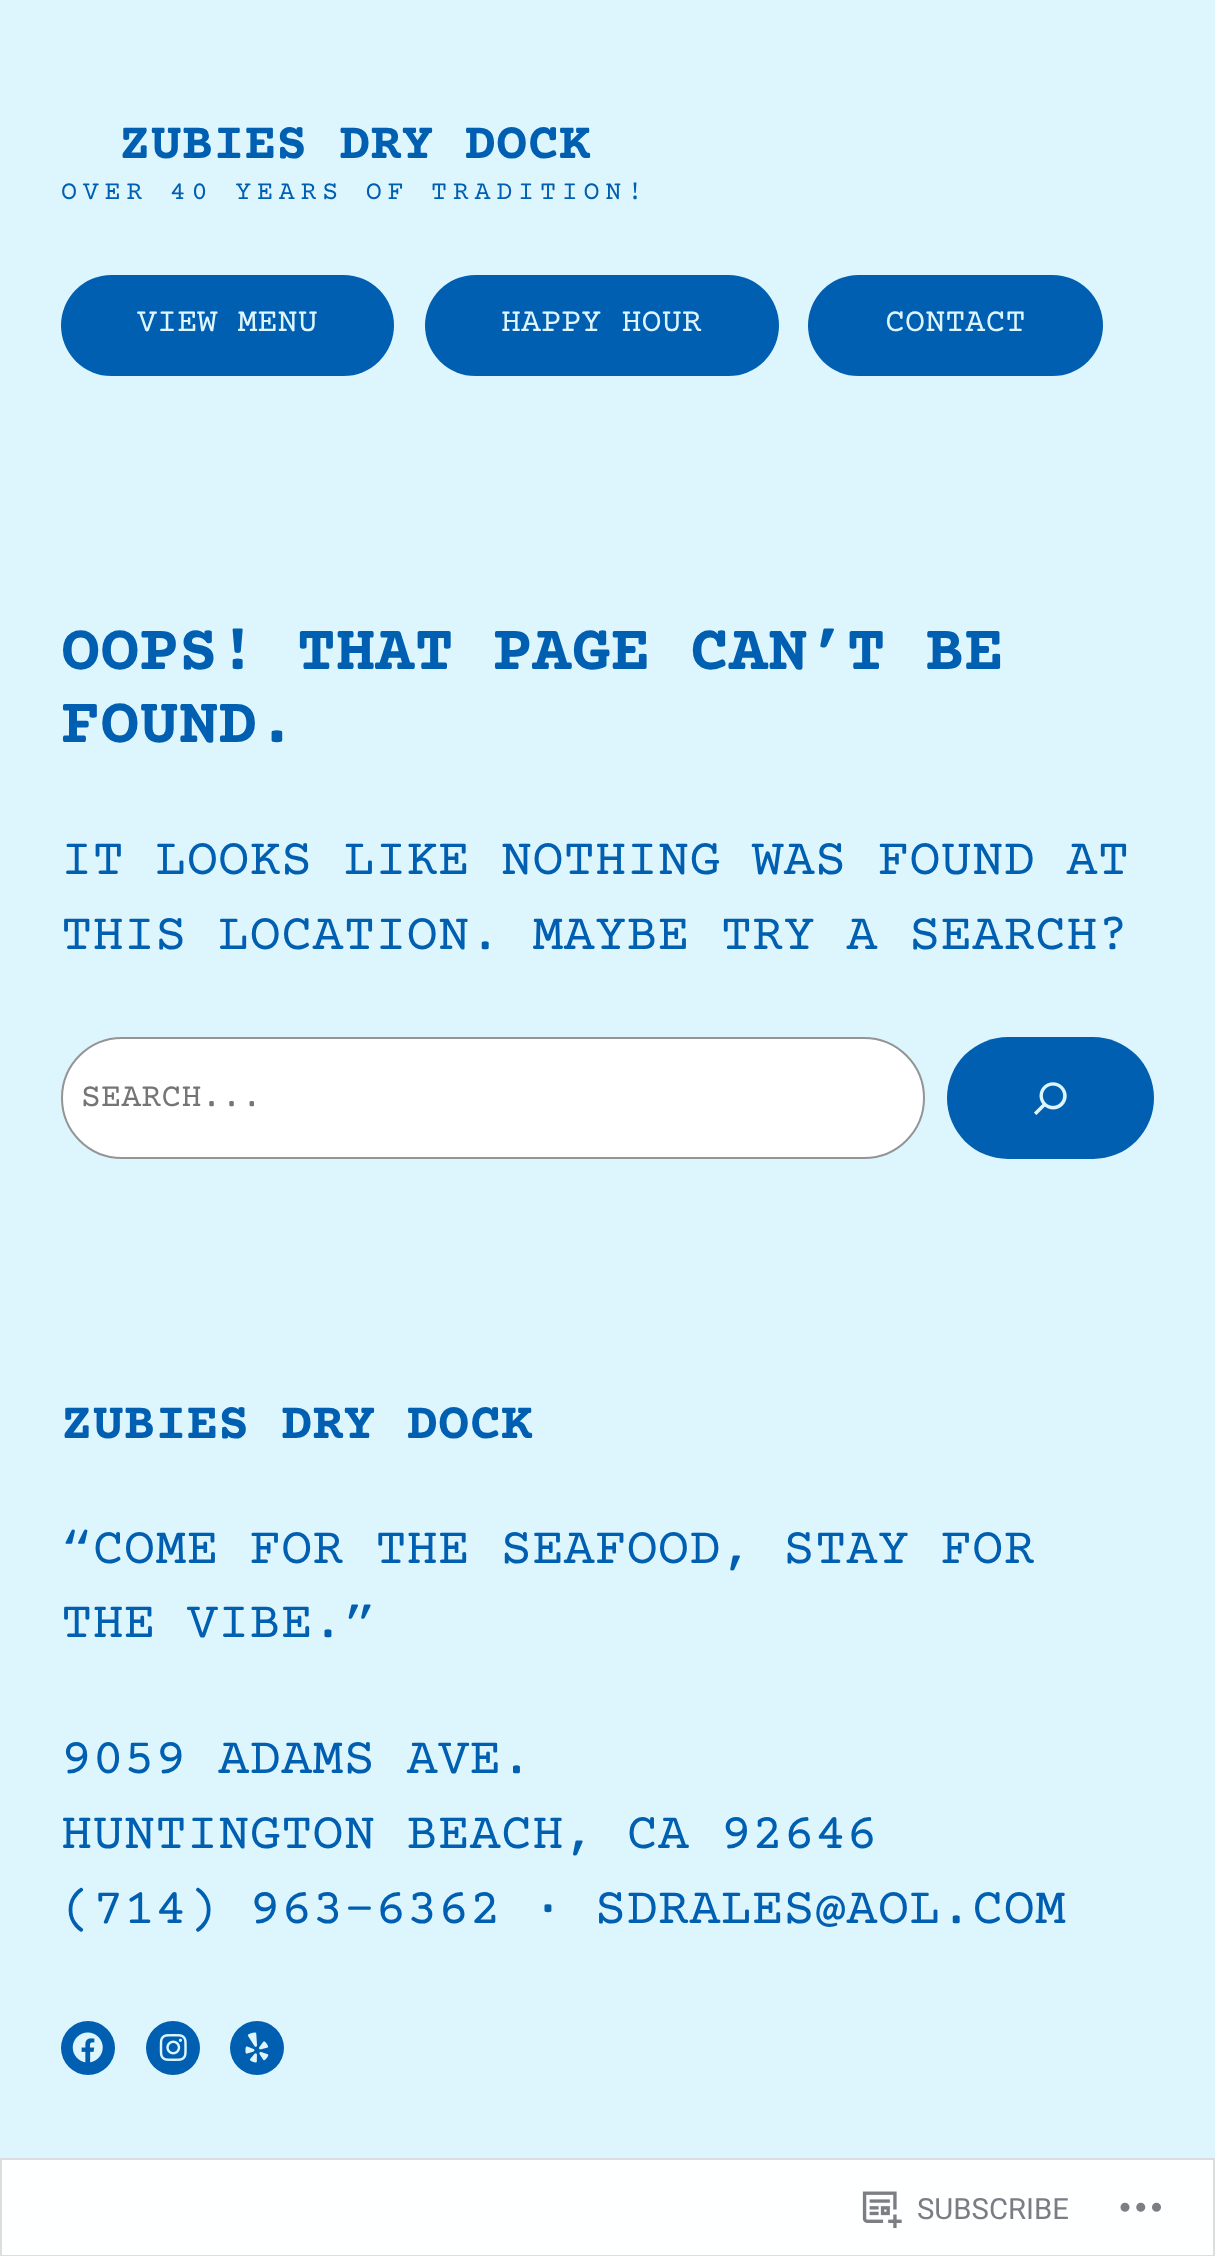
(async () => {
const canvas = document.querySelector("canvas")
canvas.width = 1215
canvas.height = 2256
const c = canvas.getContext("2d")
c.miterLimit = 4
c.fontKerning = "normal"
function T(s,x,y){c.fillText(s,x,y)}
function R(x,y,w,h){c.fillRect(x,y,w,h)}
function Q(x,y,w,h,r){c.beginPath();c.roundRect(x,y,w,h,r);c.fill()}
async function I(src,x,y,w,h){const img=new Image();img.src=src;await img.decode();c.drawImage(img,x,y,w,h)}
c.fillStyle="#ddf6fe"
R(0,0,1215,2256)
c.font="bold 52.4px Courier Prime"
c.fillStyle="#005fb0"
T("ZUBIES DRY DOCK",119,158)
c.letterSpacing="5.7px"
c.font="26.8px Courier Prime"
T("OVER 40 YEARS OF TRADITION!",61,199)
Q(61,275,333,101,50.5)
c.letterSpacing="0px"
c.font="33.5px Courier Prime"
c.fillStyle="#ddf6fe"
T("VIEW MENU",137,331)
c.fillStyle="#005fb0"
Q(425,275,354,101,50.5)
c.fillStyle="#ddf6fe"
T("HAPPY HOUR",501,331)
c.fillStyle="#005fb0"
Q(808,275,295,101,50.5)
c.fillStyle="#ddf6fe"
T("CONTACT",885,331)
c.font="bold 65.5px Courier Prime"
c.fillStyle="#005fb0"
T("OOPS! THAT PAGE CAN’T BE",61,669)
T("FOUND.",61,742)
c.font="52.4px Courier Prime"
T("IT LOOKS LIKE NOTHING WAS FOUND AT",61,874)
T("THIS LOCATION. MAYBE TRY A SEARCH?",61,949)
c.fillStyle="#fff"
c.beginPath()
c.roundRect(62,1038,862,120,60)
c.fill()
c.strokeStyle="#949494"
c.lineWidth=2
c.stroke()
c.font="33.5px Courier Prime"
c.fillStyle="#757575"
T("SEARCH...",81,1106)
c.fillStyle="#005fb0"
Q(947,1037,207,122,61)
await I("1.png",1034,1082,33,33)
c.font="bold 52.4px Courier Prime"
T("ZUBIES DRY DOCK",61,1438)
c.font="52.4px Courier Prime"
T("“COME FOR THE SEAFOOD, STAY FOR",61,1563)
T("THE VIBE.”",61,1637)
T("9059 ADAMS AVE.",61,1773)
T("HUNTINGTON BEACH, CA 92646",61,1848)
T("(714) 963-6362 · SDRALES@AOL.COM",61,1923)
c.beginPath()
c.arc(88,2048,27,0,7)
c.fill()
await I("2.png",72,2032,31,31)
c.beginPath()
c.arc(173,2048,27,0,7)
c.fill()
await I("3.png",159,2034,28,27)
c.beginPath()
c.arc(257,2048,27,0,7)
c.fill()
await I("4.png",245,2032,24,31)
c.fillStyle="#feffff"
c.beginPath()
c.rect(1,2159,1213,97)
c.fill()
c.strokeStyle="#dcdddf"
c.stroke()
await I("5.png",862,2191,40,38)
c.font="29.25px Roboto"
c.fillStyle="#7a7e84"
T("SUBSCRIBE",917,2219)
await I("6.png",1120,2202,41,10)
})()
